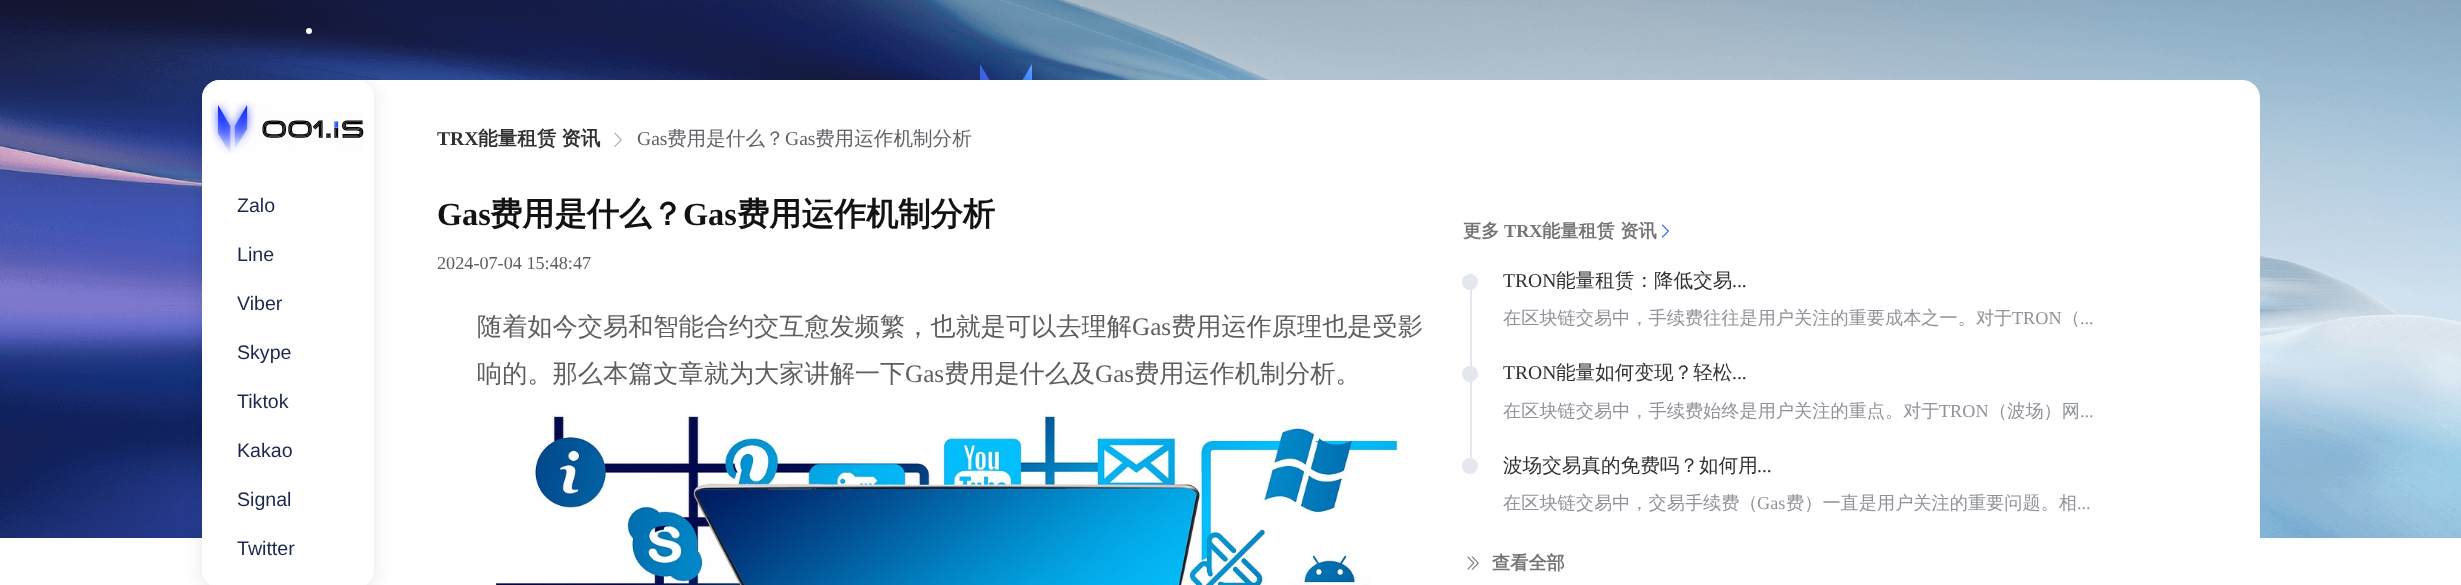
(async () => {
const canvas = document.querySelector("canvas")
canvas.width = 2461
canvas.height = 585
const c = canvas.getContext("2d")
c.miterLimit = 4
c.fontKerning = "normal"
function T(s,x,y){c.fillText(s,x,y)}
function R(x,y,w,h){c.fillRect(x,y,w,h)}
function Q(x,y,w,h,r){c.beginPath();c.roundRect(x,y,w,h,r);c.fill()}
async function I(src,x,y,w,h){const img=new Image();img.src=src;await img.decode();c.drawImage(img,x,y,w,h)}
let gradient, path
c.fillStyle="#fff"
R(0,0,2461,585)
await I("1.png",0,0,2461,538)
c.beginPath()
c.arc(309,31,3,0,7)
c.fill()
Q(202,80,2058,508,18)
c.save()
path = new Path2D("M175 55h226v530h-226zm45 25h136c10 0 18 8 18 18v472c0 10-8 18-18 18h-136c-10 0-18-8-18-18v-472c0-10 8-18 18-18z")
c.clip(path,"evenodd")
c.fillStyle="#0000001a"
c.filter="blur(8.5px)"
c.beginPath()
c.roundRect(202,82,172,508,18)
c.fill()
c.filter="none"
c.restore()
gradient = c.createLinearGradient(202,334,428,334)
gradient.addColorStop(.01,"#fff")
gradient.addColorStop(1,"#ffffff00")
c.fillStyle = gradient
Q(202,80,172,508,18)
await I("2.png",210,100,154,54)
c.font="19.6px Liberation Sans"
c.fillStyle="#1c274b"
T("Zalo",237,212)
T("Line",237,261)
T("Viber",237,310)
T("Skype",237,359)
T("Tiktok",237,408)
T("Kakao",237,457)
T("Signal",237,506)
T("Twitter",237,555)
c.font="bold 19.6px Liberation Serif"
c.fillStyle="#303133"
T("TRX",437,145)
c.wordSpacing="-1px"
c.font="bold 19.6px WenQuanYi Zen Hei"
T("能量租赁 资讯",478,145)
await I("3.png",614,132,8,15)
c.wordSpacing="0px"
c.font="19.6px Liberation Serif"
c.fillStyle="#606266"
T("Gas",637,145)
c.font="500 19.6px WenQuanYi Zen Hei"
T("费用是什么？",667,145)
c.font="19.6px Liberation Serif"
T("Gas",785,145)
c.font="500 19.6px WenQuanYi Zen Hei"
T("费用运作机制分析",815,145)
c.font="bold 32.25px Liberation Serif"
c.fillStyle="#121212"
T("Gas",437,225)
c.font="bold 32.25px WenQuanYi Zen Hei"
T("费用是什么？",490,225)
c.font="bold 32.25px Liberation Serif"
T("Gas",683,225)
c.font="bold 32.25px WenQuanYi Zen Hei"
T("费用运作机制分析",737,225)
c.font="18.2px Liberation Serif"
c.fillStyle="#5e5e5e"
T("2024-07-04 15:48:47",437,269)
c.font="500 25.2px WenQuanYi Zen Hei"
T("随着如今交易和智能合约交互愈发频繁，也就是可以去理解",477,335)
c.font="25.2px Liberation Serif"
T("Gas",1132,335)
c.font="500 25.2px WenQuanYi Zen Hei"
T("费用运作原理也是受影",1171,335)
T("响的。那么本篇文章就为大家讲解一下",477,382)
c.font="25.2px Liberation Serif"
T("Gas",905,382)
c.font="500 25.2px WenQuanYi Zen Hei"
T("费用是什么及",944,382)
c.font="25.2px Liberation Serif"
T("Gas",1095,382)
c.font="500 25.2px WenQuanYi Zen Hei"
T("费用运作机制分析。",1134,382)
await I("4.png",494,410,906,175)
c.font="bold 18.2px WenQuanYi Zen Hei"
c.fillStyle="#757575"
T("更多",1463,237)
c.font="bold 18.2px Liberation Serif"
T("TRX",1504,237)
c.font="bold 18.2px WenQuanYi Zen Hei"
T("能量租赁 资讯",1542,237)
await I("5.png",1661,224,8,14)
c.fillStyle="#e4e7ed"
R(1470,274,2,184)
c.beginPath()
c.arc(1470,282,8,0,7)
c.fill()
c.font="19.6px Liberation Serif"
c.fillStyle="#303133"
T("TRON",1503,287)
c.font="500 19.6px WenQuanYi Zen Hei"
T("能量租赁：降低交易",1556,287)
c.font="19.6px Liberation Serif"
T("...",1732,287)
c.font="500 18.2px WenQuanYi Zen Hei"
c.fillStyle="#909399"
T("在区块链交易中，手续费往往是用户关注的重要成本之一。对于",1503,324)
c.font="18.2px Liberation Serif"
T("TRON",2012,324)
c.font="500 18.2px WenQuanYi Zen Hei"
T("（",2062,324)
c.font="18.2px Liberation Serif"
T("...",2080,324)
c.fillStyle="#e4e7ed"
c.beginPath()
c.arc(1470,374,8,0,7)
c.fill()
c.font="19.6px Liberation Serif"
c.fillStyle="#303133"
T("TRON",1503,379)
c.font="500 19.6px WenQuanYi Zen Hei"
T("能量如何变现？轻松",1556,379)
c.font="19.6px Liberation Serif"
T("...",1732,379)
c.font="500 18.2px WenQuanYi Zen Hei"
c.fillStyle="#909399"
T("在区块链交易中，手续费始终是用户关注的重点。对于",1503,417)
c.font="18.2px Liberation Serif"
T("TRON",1939,417)
c.font="500 18.2px WenQuanYi Zen Hei"
T("（波场）网",1989,417)
c.font="18.2px Liberation Serif"
T("...",2080,417)
c.fillStyle="#e4e7ed"
c.beginPath()
c.arc(1470,466,8,0,7)
c.fill()
c.font="500 19.6px WenQuanYi Zen Hei"
c.fillStyle="#303133"
T("波场交易真的免费吗？如何用",1503,472)
c.font="19.6px Liberation Serif"
T("...",1757,472)
c.font="500 18.2px WenQuanYi Zen Hei"
c.fillStyle="#909399"
T("在区块链交易中，交易手续费（",1503,509)
c.font="18.2px Liberation Serif"
T("Gas",1757,509)
c.font="500 18.2px WenQuanYi Zen Hei"
T("费）一直是用户关注的重要问题。相",1786,509)
c.font="18.2px Liberation Serif"
T("...",2077,509)
await I("6.png",1467,556,12,14)
c.font="bold 18.2px WenQuanYi Zen Hei"
c.fillStyle="#757575"
T("查看全部",1492,569)
})()
